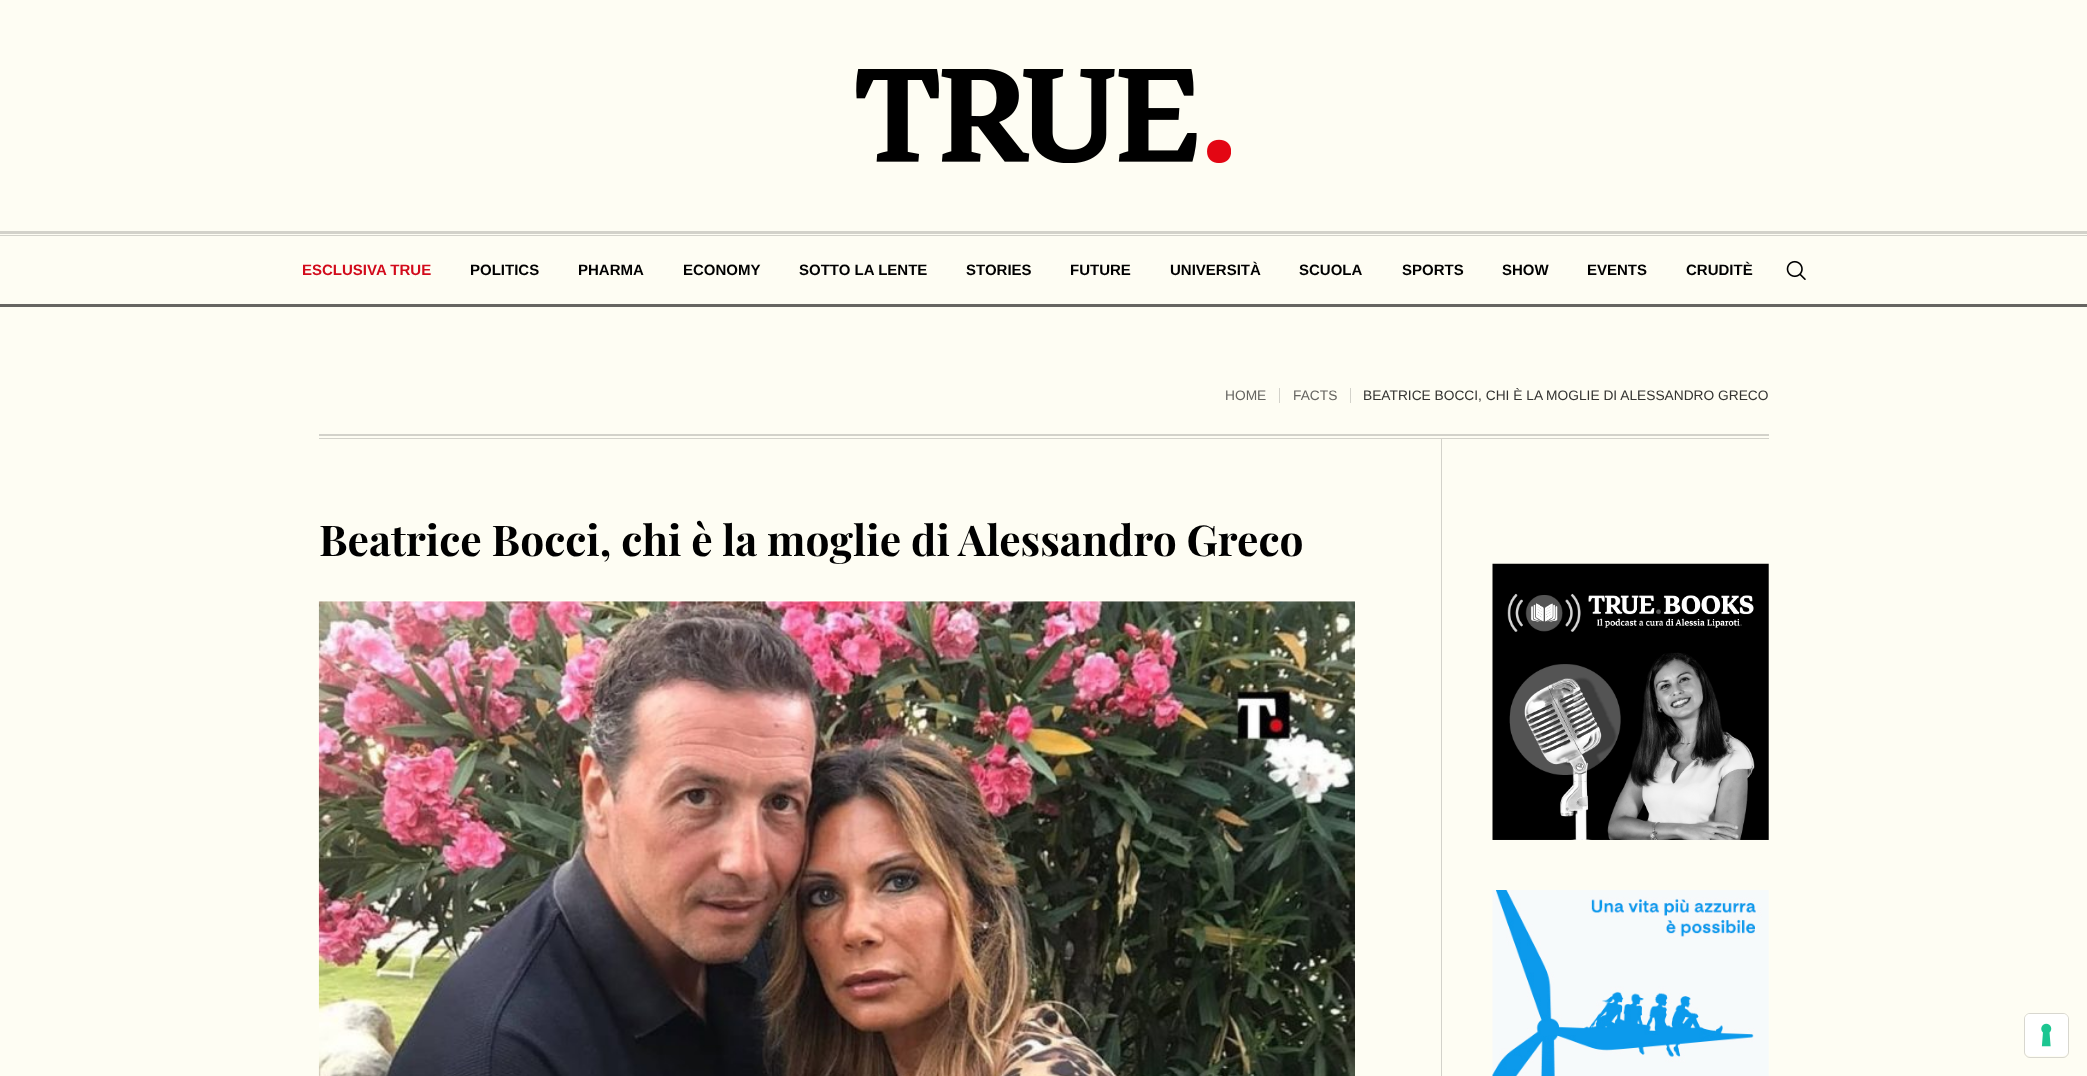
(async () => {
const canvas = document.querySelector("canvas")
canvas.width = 2087
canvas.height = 1076
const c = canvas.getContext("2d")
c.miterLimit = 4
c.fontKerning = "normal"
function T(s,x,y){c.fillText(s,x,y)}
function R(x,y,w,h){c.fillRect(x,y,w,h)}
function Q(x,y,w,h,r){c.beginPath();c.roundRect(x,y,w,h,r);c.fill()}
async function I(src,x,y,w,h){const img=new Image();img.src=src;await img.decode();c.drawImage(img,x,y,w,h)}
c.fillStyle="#fefdf3"
R(0,0,2087,1076)
await I("1.png",856,69,375,94)
c.fillStyle="#d3d2ca"
R(0,235,2087,1)
R(0,231,2087,3)
c.fillStyle="#666561"
R(0,304,2087,3)
c.font="bold 15px Liberation Sans"
c.fillStyle="#d20a1b"
T("ESCLUSIVA TRUE",302,275)
c.fillStyle="#000"
T("POLITICS",470,275)
T("PHARMA",578,275)
T("ECONOMY",683,275)
T("SOTTO LA LENTE",799,275)
T("STORIES",966,275)
T("FUTURE",1070,275)
T("UNIVERSITÀ",1170,275)
T("SCUOLA",1299,275)
T("SPORTS",1402,275)
T("SHOW",1502,275)
T("EVENTS",1587,275)
T("CRUDITÈ",1686,275)
await I("2.png",1786,260,20,20)
c.fillStyle="#d3d2ca"
R(319,434,1450,2)
R(319,438,1450,1)
c.font="13.75px Liberation Sans"
c.fillStyle="#666561"
T("HOME",1225,400)
c.fillStyle="#d3d2ca"
R(1279,388,1,15)
c.fillStyle="#666561"
T("FACTS",1293,400)
c.fillStyle="#d3d2ca"
R(1350,388,1,15)
c.fillStyle="#333331"
T("BEATRICE BOCCI, CHI È LA MOGLIE DI ALESSANDRO GRECO",1363,400)
c.font="bold 42.5px Playfair Display"
c.fillStyle="#000"
T("Beatrice Bocci, chi è la moglie di Alessandro Greco",319,556)
await I("3.png",318,601,1037,475)
c.fillStyle="#d3d2ca"
R(1441,439,1,637)
await I("4.png",1492,563,277,277)
await I("5.png",1492,890,277,186)
c.beginPath()
c.roundRect(2024.5,1013.5,44,44,5.5)
c.strokeStyle="#d8d7cf"
c.stroke()
c.fillStyle="#fff"
Q(2025,1014,43,42,5)
await I("6.png",2041,1023,11,24)
})()
